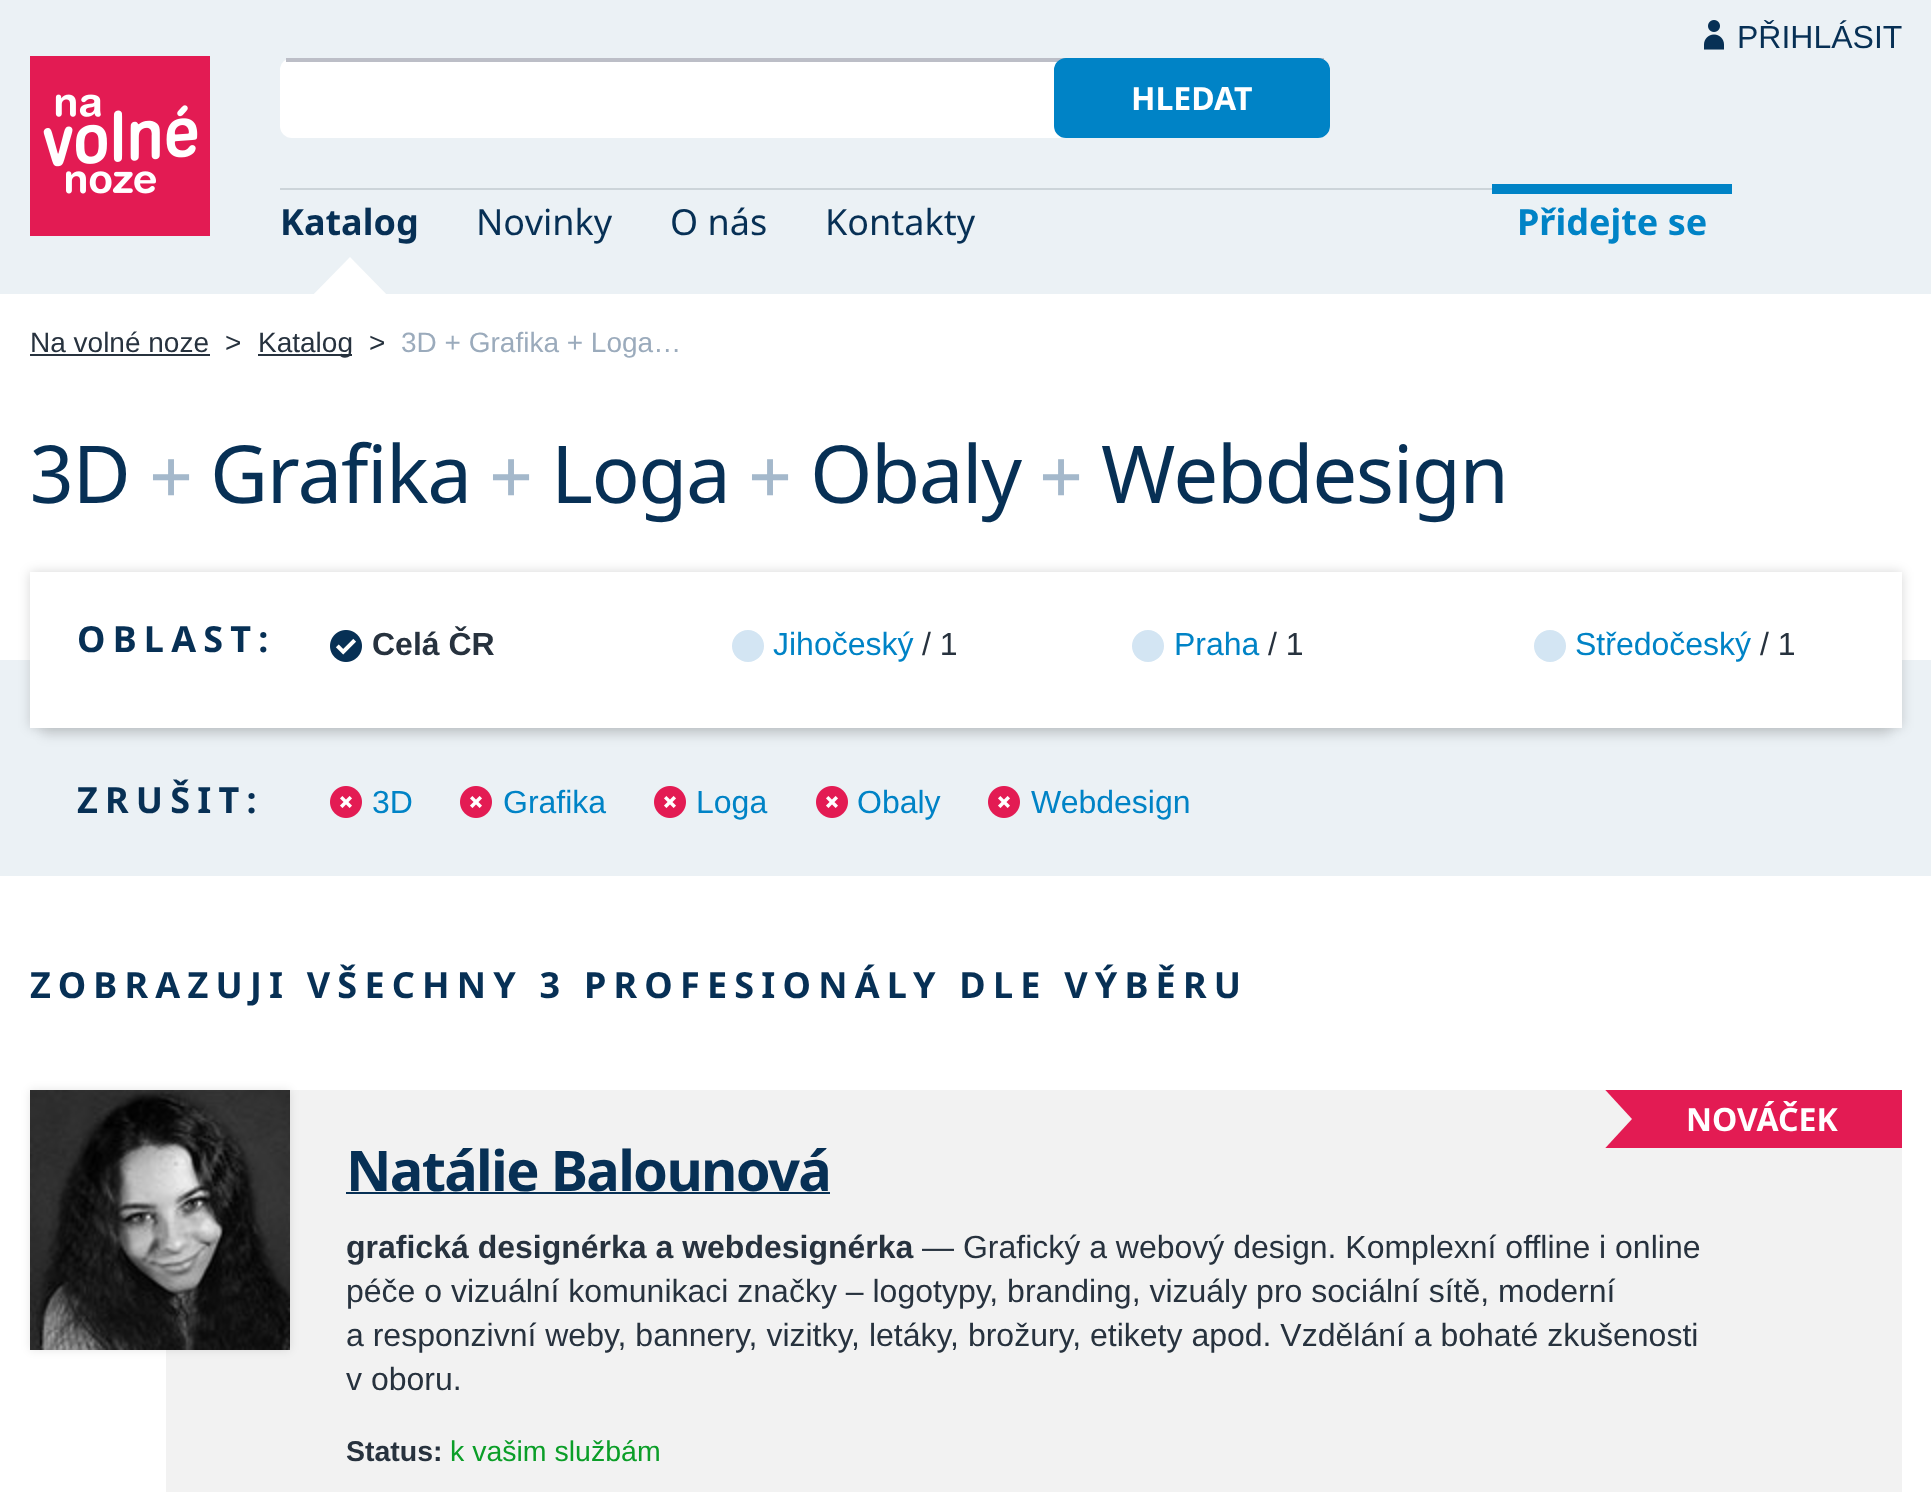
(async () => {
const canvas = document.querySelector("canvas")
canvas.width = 1931
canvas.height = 1492
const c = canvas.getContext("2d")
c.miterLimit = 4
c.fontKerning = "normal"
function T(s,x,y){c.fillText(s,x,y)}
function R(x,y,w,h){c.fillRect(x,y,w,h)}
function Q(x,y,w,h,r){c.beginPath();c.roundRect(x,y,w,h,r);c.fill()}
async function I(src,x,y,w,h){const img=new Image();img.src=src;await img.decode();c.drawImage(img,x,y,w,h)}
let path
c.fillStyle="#fff"
R(0,0,1931,1492)
c.fillStyle="#ebf1f5"
R(0,0,1931,294)
c.fillStyle="#e31b53"
R(30,56,180,180)
await I("1.png",43,94,155,100)
await I("2.png",1704,20,20,30)
c.font="32px Liberation Sans"
c.fillStyle="#073055"
T("PŘIHLÁSIT",1737,48)
c.fillStyle="#ccd4d9"
R(280,188,1212,2)
c.font="bold 36px Noto Sans"
c.fillStyle="#073055"
T("Katalog",280,235)
c.save()
c.beginPath()
c.rect(244,190,196,104)
c.clip()
c.fillStyle="#fff"
path = new Path2D("M350 257l45 46l-45 45l-45-45z")
c.fill(path)
c.restore()
c.font="36px Noto Sans"
T("Novinky",476,235)
T("O nás",670,235)
T("Kontakty",825,235)
c.fillStyle="#0083c6"
R(1492,184,240,10)
c.font="bold 36px Noto Sans"
T("Přidejte se",1517,235)
c.fillStyle="#fff"
Q(280,58,1050,80,12)
c.fillStyle="#bcbec7"
R(286,58,1038,4)
c.fillStyle="#0083c6"
c.beginPath()
c.roundRect(1055,59,274,78,11)
c.fill()
c.strokeStyle="#0083c6"
c.lineWidth=2
c.stroke()
c.font="bold 32px Noto Sans"
c.fillStyle="#fff"
T("HLEDAT",1131,110)
c.font="28px Liberation Sans"
c.fillStyle="#27323e"
T("Na volné noze",30,352)
R(30,354,180,2)
T(">",225,352)
R(258,354,94,2)
T("Katalog",258,352)
T(">",369,352)
c.fillStyle="#9babbc"
T("3D + Grafika + Loga…",401,352)
c.letterSpacing="-1.5px"
c.font="80px Noto Sans"
c.fillStyle="#073055"
T("3D",30,503)
c.fillStyle="#a4b8cb"
T("+",149,503)
c.fillStyle="#073055"
T("Grafika",210,503)
c.fillStyle="#a4b8cb"
T("+",489,503)
c.fillStyle="#073055"
T("Loga",551,503)
c.fillStyle="#a4b8cb"
T("+",748,503)
c.fillStyle="#073055"
T("Obaly",810,503)
c.fillStyle="#a4b8cb"
T("+",1039,503)
c.fillStyle="#073055"
T("Webdesign",1101,503)
c.fillStyle="#ebf1f5"
R(0,660,1931,216)
c.fillStyle="#0000001a"
c.filter="blur(6px)"
c.beginPath()
c.rect(42,604,1848,132)
c.fill()
c.filter="none"
c.fillStyle="#00000029"
c.filter="blur(6px)"
c.beginPath()
c.rect(30,572,1872,156)
c.fill()
c.filter="none"
c.fillStyle="#fff"
R(30,572,1872,156)
c.letterSpacing="7.2px"
c.font="bold 36px Noto Sans"
c.fillStyle="#073055"
T("OBLAST:",77,652)
await I("3.png",330,630,32,32)
c.letterSpacing="0px"
c.font="bold 32px Liberation Sans"
c.fillStyle="#27323e"
T("Celá ČR",372,655)
c.fillStyle="#d3e5f3"
c.beginPath()
c.arc(748,646,16,0,7)
c.fill()
c.font="32px Liberation Sans"
c.fillStyle="#0083c6"
T("Jihočeský",773,655)
c.fillStyle="#27323e"
T("/ 1",922,655)
c.fillStyle="#d3e5f3"
c.beginPath()
c.arc(1148,646,16,0,7)
c.fill()
c.fillStyle="#0083c6"
T("Praha",1174,655)
c.fillStyle="#27323e"
T("/ 1",1268,655)
c.fillStyle="#d3e5f3"
c.beginPath()
c.arc(1550,646,16,0,7)
c.fill()
c.fillStyle="#0083c6"
T("Středočeský",1575,655)
c.fillStyle="#27323e"
T("/ 1",1760,655)
c.letterSpacing="7.2px"
c.font="bold 36px Noto Sans"
c.fillStyle="#073055"
T("ZRUŠIT:",77,813)
await I("4.png",330,786,32,32)
c.letterSpacing="0px"
c.font="32px Liberation Sans"
c.fillStyle="#0083c6"
T("3D",372,813)
await I("4.png",460,786,32,32)
T("Grafika",503,813)
await I("4.png",654,786,32,32)
T("Loga",696,813)
await I("4.png",816,786,32,32)
T("Obaly",857,813)
await I("4.png",988,786,32,32)
T("Webdesign",1031,813)
c.letterSpacing="7.2px"
c.font="bold 36px Noto Sans"
c.fillStyle="#073055"
T("ZOBRAZUJI VŠECHNY 3 PROFESIONÁLY DLE VÝBĚRU",30,998)
c.fillStyle="#f2f2f2"
R(166,1090,1736,402)
c.fillStyle="#e31b53"
R(1605,1090,297,58)
c.save()
c.beginPath()
c.rect(1590,1090,312,58)
c.clip()
c.fillStyle="#f2f2f2"
path = new Path2D("M1575 1057l57 62l-57 62l-56-62z")
c.fill(path)
c.restore()
c.letterSpacing="0px"
c.font="bold 32px Noto Sans"
c.fillStyle="#fff"
T("NOVÁČEK",1686,1131)
c.fillStyle="#0000001a"
c.filter="blur(5px)"
c.beginPath()
c.rect(30,1090,260,260)
c.fill()
c.filter="none"
await I("5.png",30,1090,260,260)
c.letterSpacing="-1.7px"
c.font="bold 56px Noto Sans"
c.fillStyle="#073055"
T("Natálie Balounová",346,1191)
R(346,1192,484,2)
c.letterSpacing="0px"
c.font="bold 32px Liberation Sans"
c.fillStyle="#27323e"
T("grafická designérka a webdesignérka",346,1258)
c.font="32px Liberation Sans"
T("— Grafický a webový design. Komplexní offline i online",922,1258)
T("péče o vizuální komunikaci značky – logotypy, branding, vizuály pro sociální sítě, moderní",346,1302)
T("a responzivní weby, bannery, vizitky, letáky, brožury, etikety apod. Vzdělání a bohaté zkušenosti",346,1346)
T("v oboru.",346,1390)
c.font="bold 28.5px Liberation Sans"
T("Status:",346,1461)
c.font="28.5px Liberation Sans"
c.fillStyle="#0b9e28"
T("k vašim službám",450,1461)
})()
